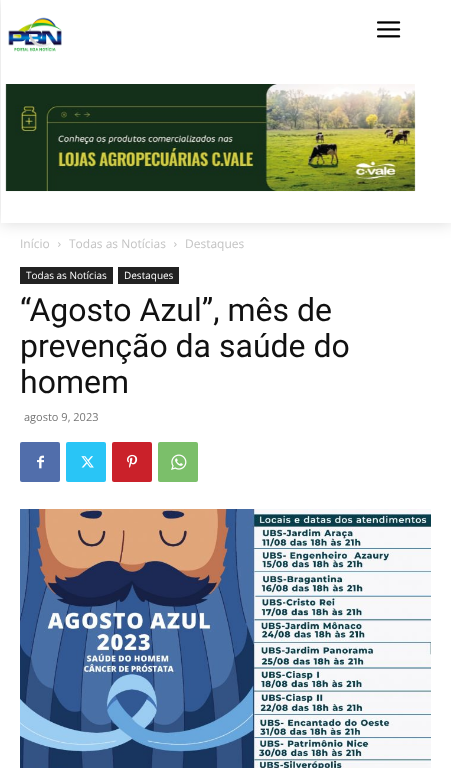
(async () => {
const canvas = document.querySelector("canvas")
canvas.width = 451
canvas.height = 768
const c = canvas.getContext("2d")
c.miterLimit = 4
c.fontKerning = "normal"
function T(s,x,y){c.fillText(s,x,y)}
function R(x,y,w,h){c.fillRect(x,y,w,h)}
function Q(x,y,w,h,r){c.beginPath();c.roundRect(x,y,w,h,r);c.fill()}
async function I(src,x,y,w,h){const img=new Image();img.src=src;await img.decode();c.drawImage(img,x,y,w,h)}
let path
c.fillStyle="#fff"
R(0,0,451,768)
await I("1.png",8,17,54,35)
await I("2.png",377,21,24,17)
await I("3.png",5,84,411,108)
await I("4.png",58,242,3,5)
await I("4.png",174,242,3,5)
c.save()
path = new Path2D("M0 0h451v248h-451zm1 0h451v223h-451z")
c.clip(path,"evenodd")
c.fillStyle="#00000026"
c.filter="blur(8px)"
c.beginPath()
c.rect(1,0,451,223)
c.fill()
c.filter="none"
c.restore()
c.font="12px Open Sans"
c.fillStyle="#c3c3c3"
T("Início",20,248)
T("Todas as Notícias",69,248)
T("Destaques",185,248)
c.fillStyle="#222"
R(20,267,93,17)
c.font="10px Open Sans"
c.fillStyle="#fff"
T("Todas as Notícias",26,279)
c.fillStyle="#222"
R(118,267,61,17)
c.fillStyle="#fff"
T("Destaques",124,279)
c.font="32px Roboto"
c.fillStyle="#111"
T("“Agosto Azul”, mês de",20,321)
T("prevenção da saúde do",20,357)
T("homem",20,393)
c.font="11px Open Sans"
c.fillStyle="#767676"
T("agosto 9, 2023",24,421)
c.fillStyle="#516eab"
Q(20,442,40,40,2)
await I("5.png",37,455,7,14)
c.fillStyle="#29c5f6"
Q(66,442,40,40,2)
await I("6.png",81,456,13,12)
c.fillStyle="#ca212a"
Q(112,442,40,40,2)
await I("7.png",127,454,11,14)
c.fillStyle="#7bbf6a"
Q(158,442,40,40,2)
await I("8.png",171,454,16,16)
await I("9.png",20,509,411,259)
})()
